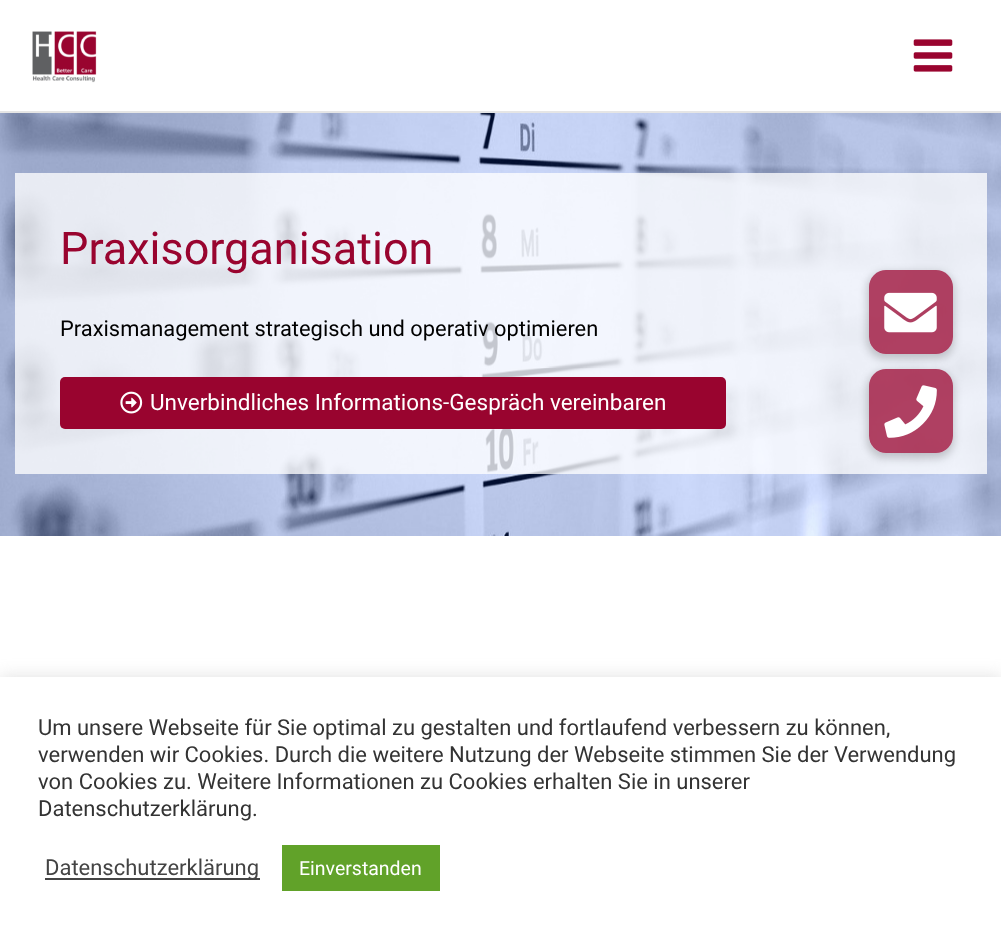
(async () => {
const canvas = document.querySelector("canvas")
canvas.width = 1001
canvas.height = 935
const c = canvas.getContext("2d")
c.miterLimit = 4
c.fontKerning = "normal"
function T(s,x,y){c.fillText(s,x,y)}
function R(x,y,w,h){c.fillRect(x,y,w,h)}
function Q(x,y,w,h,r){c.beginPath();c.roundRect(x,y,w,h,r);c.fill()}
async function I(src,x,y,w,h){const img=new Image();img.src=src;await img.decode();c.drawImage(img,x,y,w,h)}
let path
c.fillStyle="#fff"
R(0,0,1001,935)
c.fillStyle="#e5e5e5"
R(0,111,1001,2)
await I("1.png",32,31,65,52)
await I("2.png",913,39,40,33)
await I("3.png",0,113,1001,423)
c.fillStyle="#ffffffc4"
R(15,173,972,301)
c.font="45px Roboto"
c.fillStyle="#99042f"
T("Praxisorganisation",60,264)
c.font="21.9px Roboto"
c.fillStyle="#000"
T("Praxismanagement strategisch und operativ optimieren",60,336)
c.fillStyle="#99042f"
Q(60,377,666,52,5)
await I("4.png",120,391,23,23)
c.font="22.5px Roboto"
c.fillStyle="#fff"
T("Unverbindliches Informations-Gespräch vereinbaren",150,410)
c.save()
path = new Path2D("M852 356h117v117h-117zm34 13h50c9.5 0 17 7.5 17 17v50c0 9.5-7.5 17-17 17h-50c-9.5 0-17-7.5-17-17v-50c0-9.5 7.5-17 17-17z")
c.clip(path,"evenodd")
c.fillStyle="#00000033"
c.filter="blur(4.5px)"
c.beginPath()
c.roundRect(867,371,87,87,18)
c.fill()
c.filter="none"
c.restore()
c.fillStyle="#99042fbf"
Q(869,369,84,84,17)
c.save()
path = new Path2D("M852 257h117v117h-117zm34 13h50c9.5 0 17 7.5 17 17v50c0 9.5-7.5 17-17 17h-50c-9.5 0-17-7.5-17-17v-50c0-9.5 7.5-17 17-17z")
c.clip(path,"evenodd")
c.fillStyle="#00000033"
c.filter="blur(4.5px)"
c.beginPath()
c.roundRect(867,272,87,87,18)
c.fill()
c.filter="none"
c.restore()
Q(869,270,84,84,17)
await I("5.png",884,292,53,41)
await I("6.png",884,385,53,53)
c.fillStyle="#acabab4d"
c.filter="blur(7.5px)"
c.beginPath()
c.rect(0,675,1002,260)
c.fill()
c.filter="none"
c.fillStyle="#fff"
R(0,677,1001,258)
c.font="22px Roboto"
c.fillStyle="#333"
T("Um unsere Webseite für Sie optimal zu gestalten und fortlaufend verbessern zu können,",38,735)
T("verwenden wir Cookies. Durch die weitere Nutzung der Webseite stimmen Sie der Verwendung",38,762)
T("von Cookies zu. Weitere Informationen zu Cookies erhalten Sie in unserer",38,789)
T("Datenschutzerklärung.",38,816)
c.fillStyle="#444"
R(45,878,215,2)
T("Datenschutzerklärung",45,875)
c.fillStyle="#61a229"
R(282,845,158,46)
c.font="19.5px Roboto"
c.fillStyle="#fff"
T("Einverstanden",299,875)
})()
